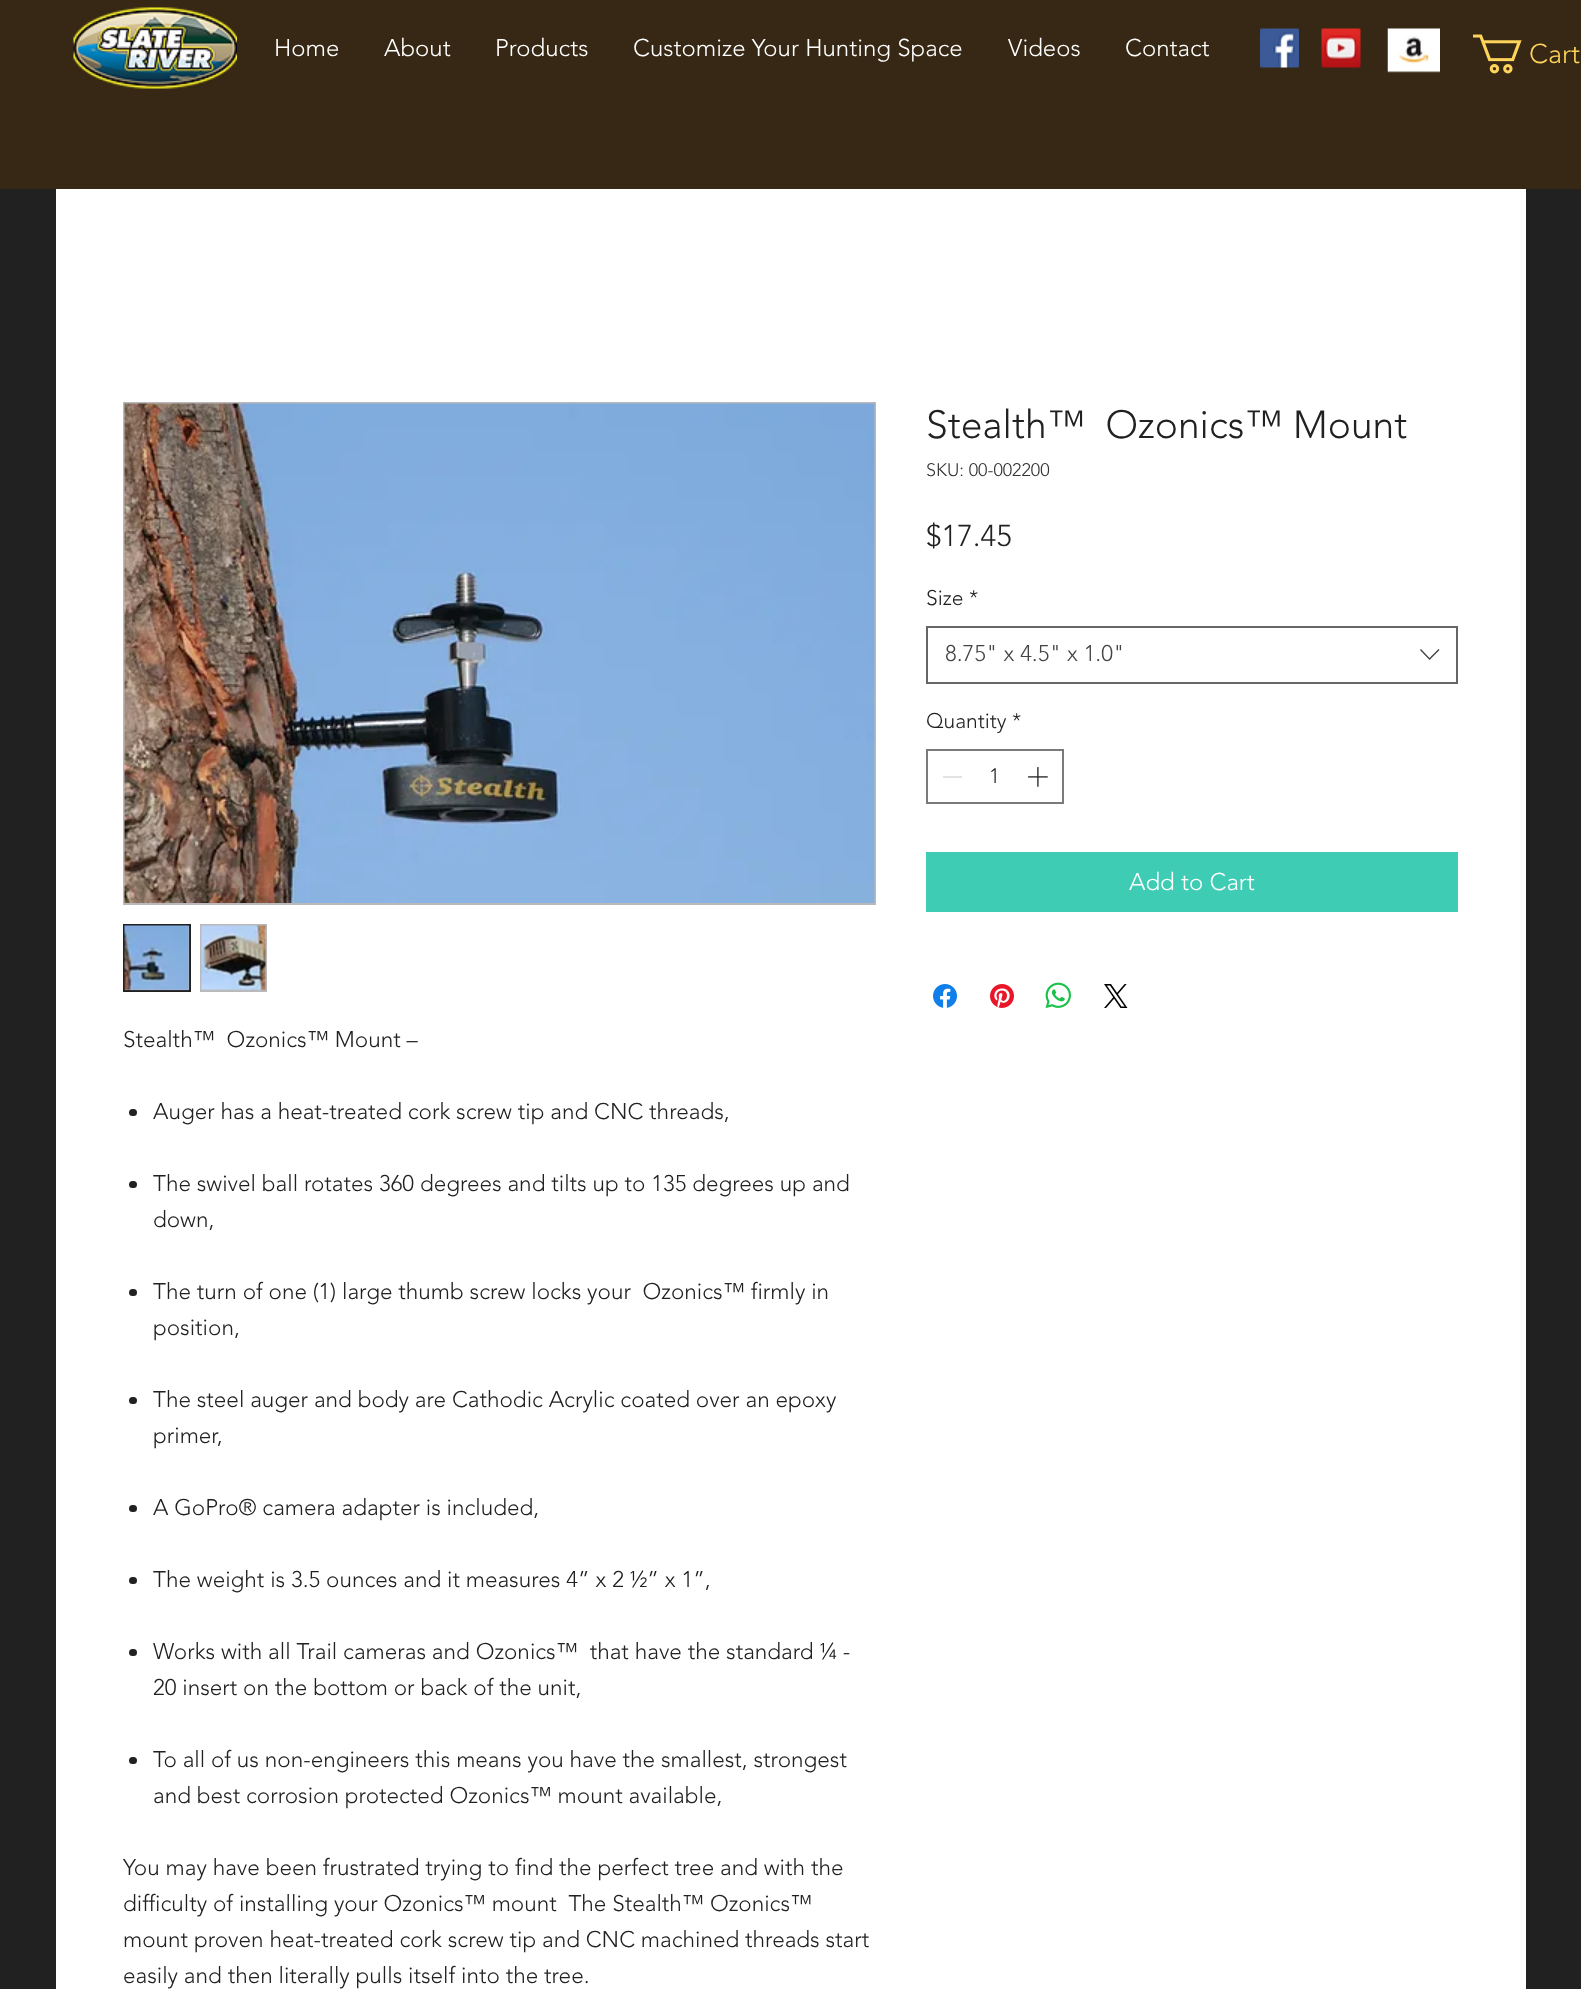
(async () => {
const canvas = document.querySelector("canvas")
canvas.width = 1581
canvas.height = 1989
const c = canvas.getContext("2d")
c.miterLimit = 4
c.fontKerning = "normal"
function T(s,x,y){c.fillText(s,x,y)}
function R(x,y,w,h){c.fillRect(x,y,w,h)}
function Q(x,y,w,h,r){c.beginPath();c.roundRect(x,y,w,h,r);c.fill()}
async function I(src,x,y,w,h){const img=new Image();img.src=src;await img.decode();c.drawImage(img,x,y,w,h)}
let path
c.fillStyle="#212121"
R(0,0,1581,1989)
c.fillStyle="#362814"
R(0,0,1581,189)
await I("1.png",73,7,164,82)
c.font="300 24px 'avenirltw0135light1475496'"
c.fillStyle="#fff"
T("Home",274,56)
T("About",384,56)
T("Products",495,56)
T("Customize Your Hunting Space",633,56)
T("Videos",1008,56)
T("Contact",1125,56)
await I("2.png",1260,28,39,40)
await I("3.png",1321,28,40,40)
await I("4.png",1387,28,53,45)
await I("5.png",1473,34,49,40)
c.font="300 27px 'avenirltw0135light1475496'"
c.fillStyle="#ffd45a"
T("Cart",1529,63)
c.fillStyle="#fff"
R(56,189,1470,1800)
c.font="300 39px 'avenirltw0135light1475496'"
c.fillStyle="#212121"
T("Stealth™  Ozonics™ Mount",926,438)
c.font="300 18px 'avenirltw0135light1475496'"
c.fillStyle="#333"
T("SKU: 00-002200",926,476)
c.font="300 30px 'avenirltw0135light1475496'"
c.fillStyle="#212121"
T("$17.45",926,546)
c.font="300 21px 'avenirltw0135light1475496'"
T("Size",926,605)
T("*",969,605)
c.strokeStyle="#666"
c.lineWidth=2
c.strokeRect(927,627,530,56)
c.font="300 22.5px 'avenirltw0135light1475496'"
c.fillStyle="#444"
T("8.75\" x 4.5\" x 1.0\"",945,661)
path = new Path2D("M1438.5 649l1 1l-10 10l-9.5-10l1-1l8.5 9z")
c.fill(path,"evenodd")
c.font="300 21px 'avenirltw0135light1475496'"
c.fillStyle="#212121"
T("Quantity",926,728)
T("*",1012,728)
c.strokeStyle="#7a7a7a"
c.strokeRect(927,750,136,53)
c.fillStyle="#e3e3e3"
R(943,776,19,2)
c.fillStyle="#212121"
T("1",989,783)
await I("6.png",1028,767,20,20)
c.fillStyle="#3eccb5"
R(926,852,532,60)
c.font="300 24px 'avenirltw0135light1475496'"
c.fillStyle="#fff"
T("Add to Cart",1129,890)
await I("7.png",933,984,24,24)
await I("8.png",990,984,24,24)
await I("9.png",1045,982,26,27)
await I("10.png",1104,984,24,24)
c.strokeStyle="#bab8b8"
c.strokeRect(124,403,751,501)
await I("11.png",124,403,751,500)
c.fillStyle="#bab8b8"
c.beginPath()
c.rect(124,925,66,66)
c.fill()
c.strokeStyle="#212121"
c.stroke()
await I("12.png",124,925,66,66)
R(200,924,67,68)
await I("13.png",200,925,66,66)
c.font="300 22.5px 'avenirltw0135light1475496'"
c.fillStyle="#212121"
T("Stealth™  Ozonics™ Mount –",123,1047)
Q(129,1109,8,7,3.5)
T("Auger has a heat-treated cork screw tip and CNC threads,",153,1119)
Q(129,1181,8,7,3.5)
T("The swivel ball rotates 360 degrees and tilts up to 135 degrees up and",153,1191)
T("down,",153,1227)
Q(129,1289,8,7,3.5)
T("The turn of one (1) large thumb screw locks your  Ozonics™ firmly in",153,1299)
T("position,",153,1335)
Q(129,1397,8,7,3.5)
T("The steel auger and body are Cathodic Acrylic coated over an epoxy",153,1407)
T("primer,",153,1443)
Q(129,1505,8,7,3.5)
T("A GoPro® camera adapter is included,",153,1515)
Q(129,1577,8,7,3.5)
T("The weight is 3.5 ounces and it measures 4” x 2 ½” x 1”,",153,1587)
Q(129,1649,8,7,3.5)
T("Works with all Trail cameras and Ozonics™  that have the standard ¼ -",153,1659)
T("20 insert on the bottom or back of the unit,",153,1695)
Q(129,1757,8,7,3.5)
T("To all of us non-engineers this means you have the smallest, strongest",153,1767)
T("and best corrosion protected Ozonics™ mount available,",153,1803)
T("You may have been frustrated trying to find the perfect tree and with the",123,1875)
T("difficulty of installing your Ozonics™ mount  The Stealth™ Ozonics™",123,1911)
T("mount proven heat-treated cork screw tip and CNC machined threads start",123,1947)
T("easily and then literally pulls itself into the tree.",123,1983)
})()
